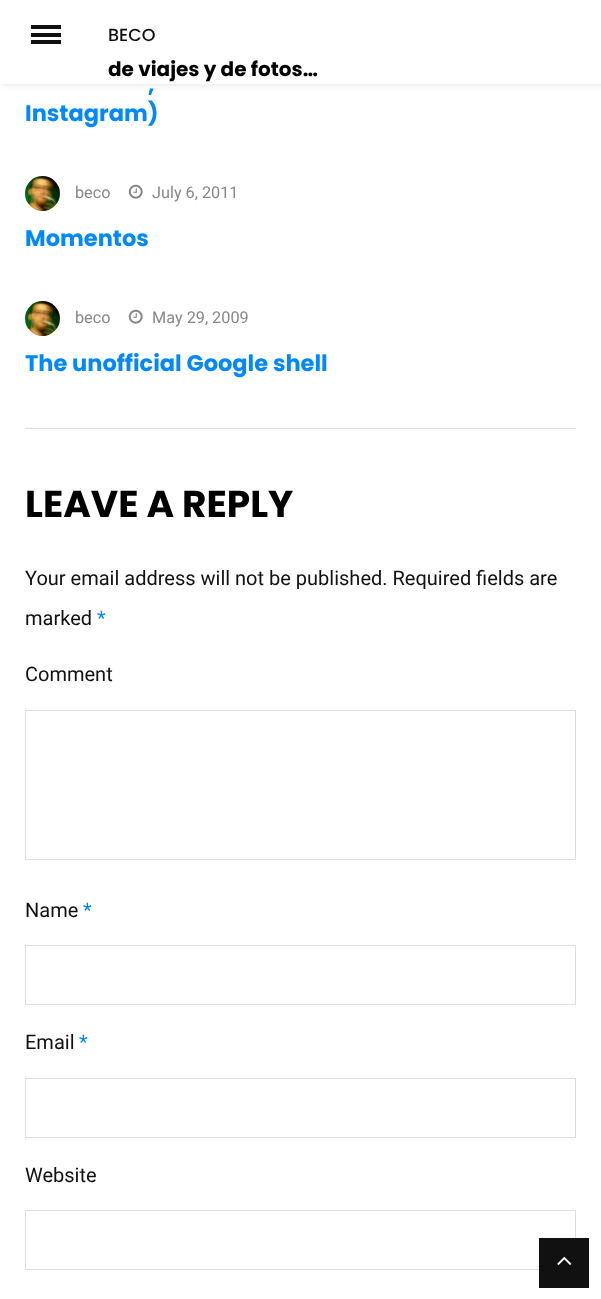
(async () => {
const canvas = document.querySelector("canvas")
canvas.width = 601
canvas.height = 1299
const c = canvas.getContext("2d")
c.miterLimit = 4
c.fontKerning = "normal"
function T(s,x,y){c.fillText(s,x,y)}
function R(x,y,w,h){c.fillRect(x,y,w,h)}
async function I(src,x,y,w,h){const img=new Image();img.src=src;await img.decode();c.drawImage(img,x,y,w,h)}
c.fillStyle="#fff"
R(0,0,601,1299)
c.fillStyle="#0000001a"
c.filter="blur(3px)"
c.beginPath()
c.rect(3,1,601,84)
c.fill()
c.filter="none"
c.fillStyle="#fff"
R(0,0,601,84)
c.fillStyle="#111"
R(31,25,30,4)
R(31,33,30,4)
R(31,40,30,4)
c.font="500 17.5px Poppins"
T("BECO",108,41)
c.font="bold 20px Poppins"
c.fillStyle="#000"
T("de viajes y de fotos…",108,76)
c.font="bold 22.5px Poppins"
c.fillStyle="#08f"
T(",",148,92)
T("Instagram)",25,121)
await I("1.png",25,176,35,35)
c.font="16.25px Roboto"
c.fillStyle="#888"
T("beco",75,198)
await I("2.png",128,184,15,15)
T("July 6, 2011",152,198)
c.font="bold 22.5px Poppins"
c.fillStyle="#08f"
T("Momentos",25,246)
await I("3.png",25,301,35,35)
c.font="16.25px Roboto"
c.fillStyle="#888"
T("beco",75,323)
await I("2.png",128,309,15,15)
T("May 29, 2009",152,323)
c.font="bold 22.5px Poppins"
c.fillStyle="#08f"
T("The unofficial Google shell",25,371)
c.fillStyle="#dedede"
R(25,428,551,1)
c.font="bold 37.5px Poppins"
c.fillStyle="#000"
T("LEAVE A REPLY",25,517)
c.font="20px Roboto"
c.fillStyle="#111"
T("Your email address will not be published. Required fields are",25,585)
T("marked",25,625)
c.fillStyle="#08f"
T("*",97,625)
c.fillStyle="#111"
T("Comment",25,681)
c.strokeStyle="#dedede"
c.strokeRect(25.5,710.5,550,149)
T("Name",25,917)
c.fillStyle="#08f"
T("*",83,917)
c.strokeRect(25.5,945.5,550,59)
c.fillStyle="#111"
T("Email",25,1049)
c.fillStyle="#08f"
T("*",79,1049)
c.strokeRect(25.5,1078.5,550,59)
c.fillStyle="#111"
T("Website",25,1182)
c.strokeRect(25.5,1210.5,550,59)
R(539,1238,50,50)
await I("4.png",557,1256,15,9)
})()
